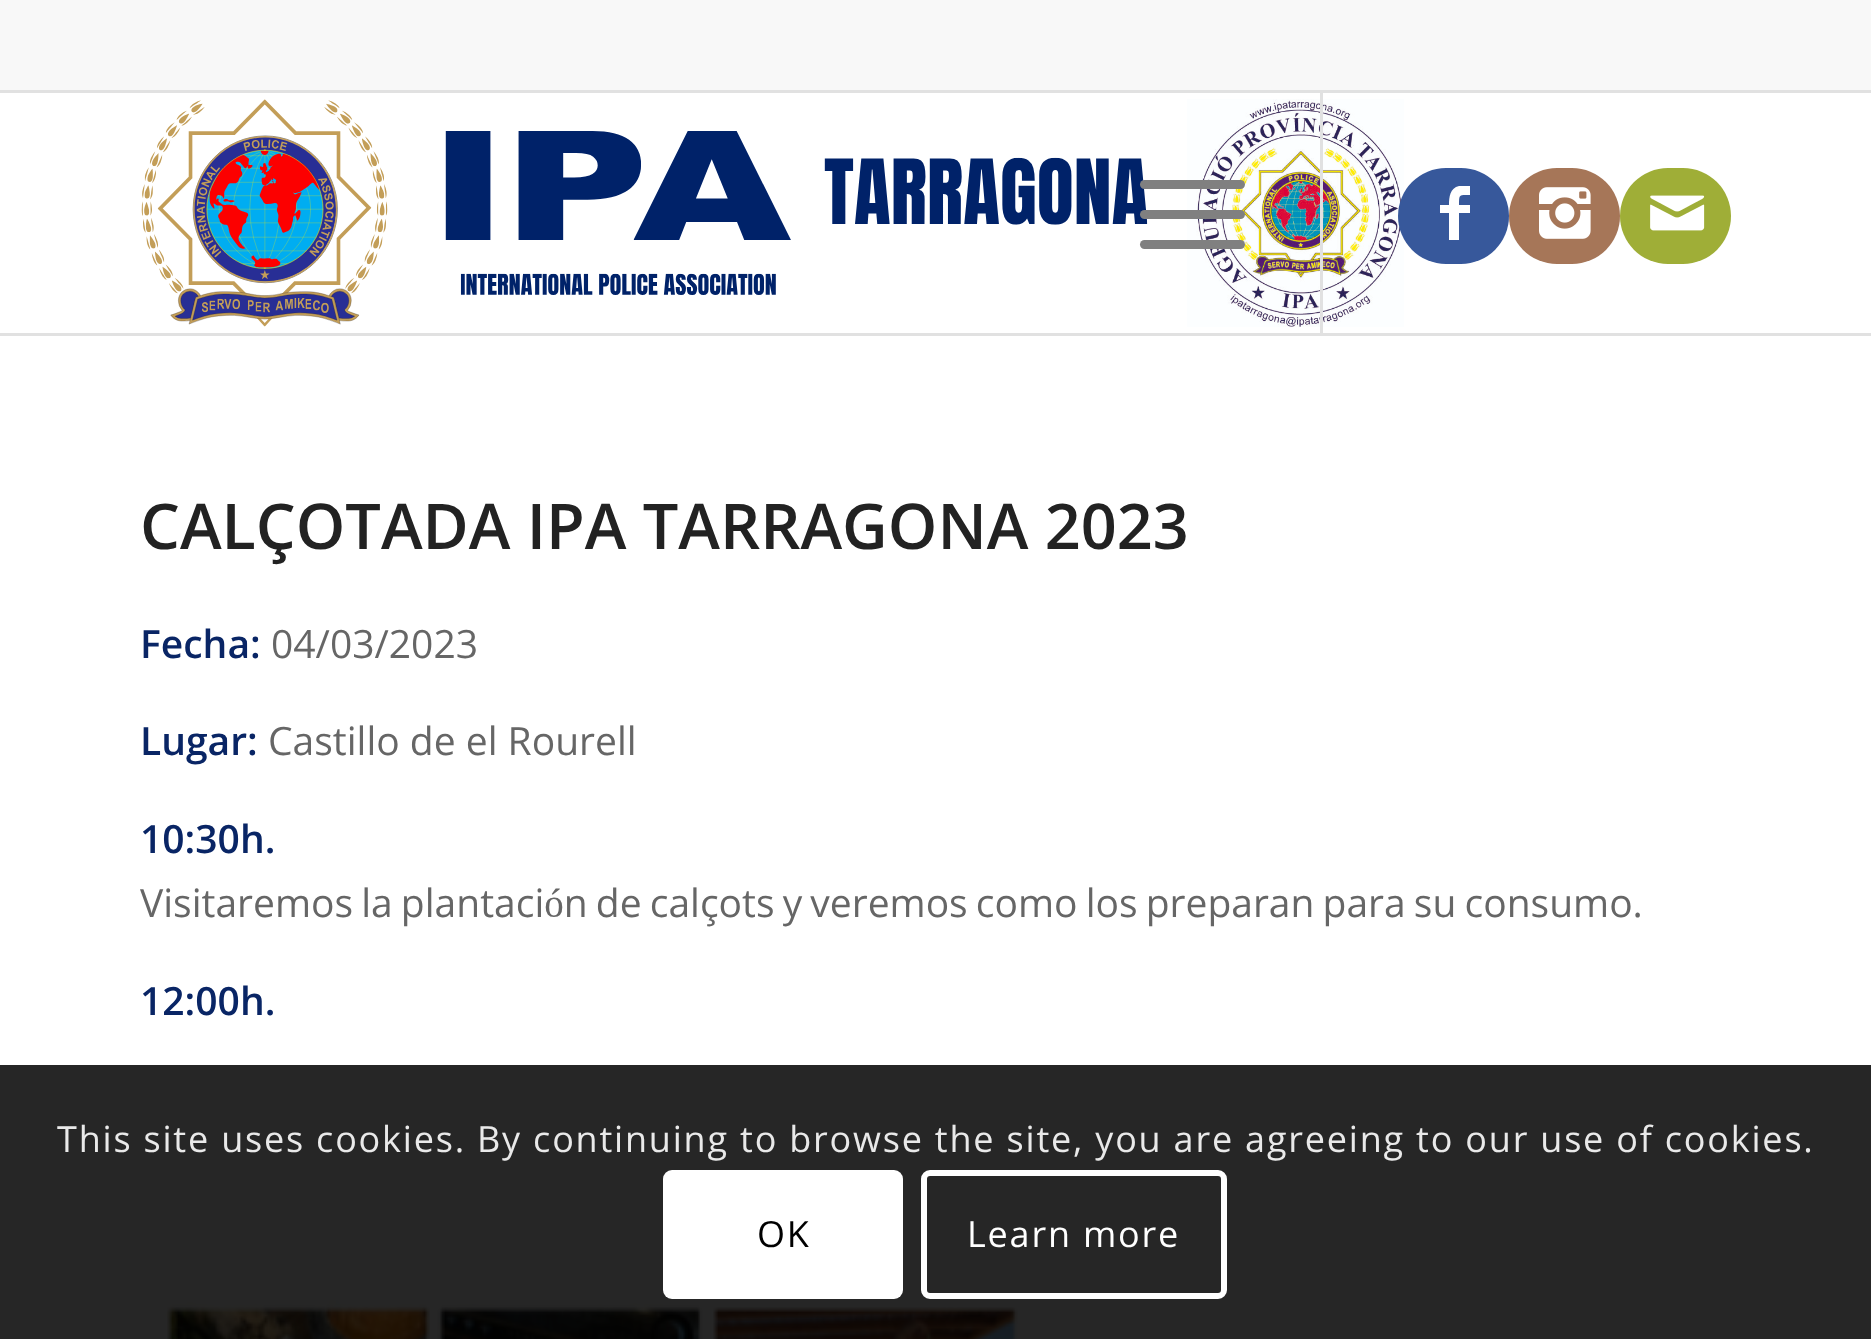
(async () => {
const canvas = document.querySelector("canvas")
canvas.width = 1871
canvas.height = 1339
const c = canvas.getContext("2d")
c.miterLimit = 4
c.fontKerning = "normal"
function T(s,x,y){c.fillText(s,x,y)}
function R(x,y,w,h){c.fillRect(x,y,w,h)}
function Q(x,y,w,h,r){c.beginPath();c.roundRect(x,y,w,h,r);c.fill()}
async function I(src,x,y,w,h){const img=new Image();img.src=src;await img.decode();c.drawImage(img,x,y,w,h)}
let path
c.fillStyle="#fff"
R(0,0,1871,1339)
c.fillStyle="#f8f8f8"
R(0,0,1871,90)
c.fillStyle="#e1e1e1"
R(0,90,1871,3)
R(0,333,1871,3)
await I("1.png",141,99,1263,228)
R(1320,93,3,240)
c.fillStyle="#808080"
Q(1140,210,105,9,4.5)
Q(1140,180,105,9,4.5)
Q(1140,240,105,9,4.5)
c.fillStyle="#37589b"
Q(1398,168,111,96,48)
c.fillStyle="#fff"
path = new Path2D("M1470 195c-11 0-11-1-11 10h11v8h-11v27h-10v-27h-9v-8h9c0-8 1-17 10-19h11z")
c.fill(path)
c.fillStyle="#a67658"
Q(1509,168,111,96,48)
await I("2.png",1539,187,52,52)
c.fillStyle="#9fae37"
Q(1620,168,111,96,48)
await I("3.png",1650,195,55,36)
c.font="600 63px Open Sans"
c.fillStyle="#222"
T("CALÇOTADA IPA TARRAGONA 2023",140,549)
c.font="600 39px Open Sans"
c.fillStyle="#092565"
T("Fecha:",140,658)
c.font="39px Open Sans"
c.fillStyle="#666"
T("04/03/2023",271,658)
c.font="600 39px Open Sans"
c.fillStyle="#092565"
T("Lugar:",140,755)
c.font="39px Open Sans"
c.fillStyle="#666"
T("Castillo de el Rourell",268,755)
c.font="600 39px Open Sans"
c.fillStyle="#092565"
T("10:30h.",140,853)
c.wordSpacing="-2px"
c.font="39px Open Sans"
c.fillStyle="#666"
T("Visitaremos la plantación de calçots y veremos como los preparan para su consumo.",140,917)
c.wordSpacing="0px"
c.font="600 39px Open Sans"
c.fillStyle="#092565"
T("12:00h.",140,1015)
await I("4.png",165,1299,853,40)
c.fillStyle="#000000d9"
R(0,1065,1871,274)
c.letterSpacing="1.8px"
c.font="36px Open Sans"
c.fillStyle="#e9e9e9"
T("This site uses cookies. By continuing to browse the site, you are agreeing to our use of cookies.",57,1152)
c.fillStyle="#fff"
Q(663,1170,240,129,9)
c.fillStyle="#000"
T("OK",757,1247)
c.beginPath()
c.roundRect(924,1173,300,123,6)
c.strokeStyle="#fff"
c.lineWidth=6
c.stroke()
c.fillStyle="#fff"
T("Learn more",967,1247)
})()
